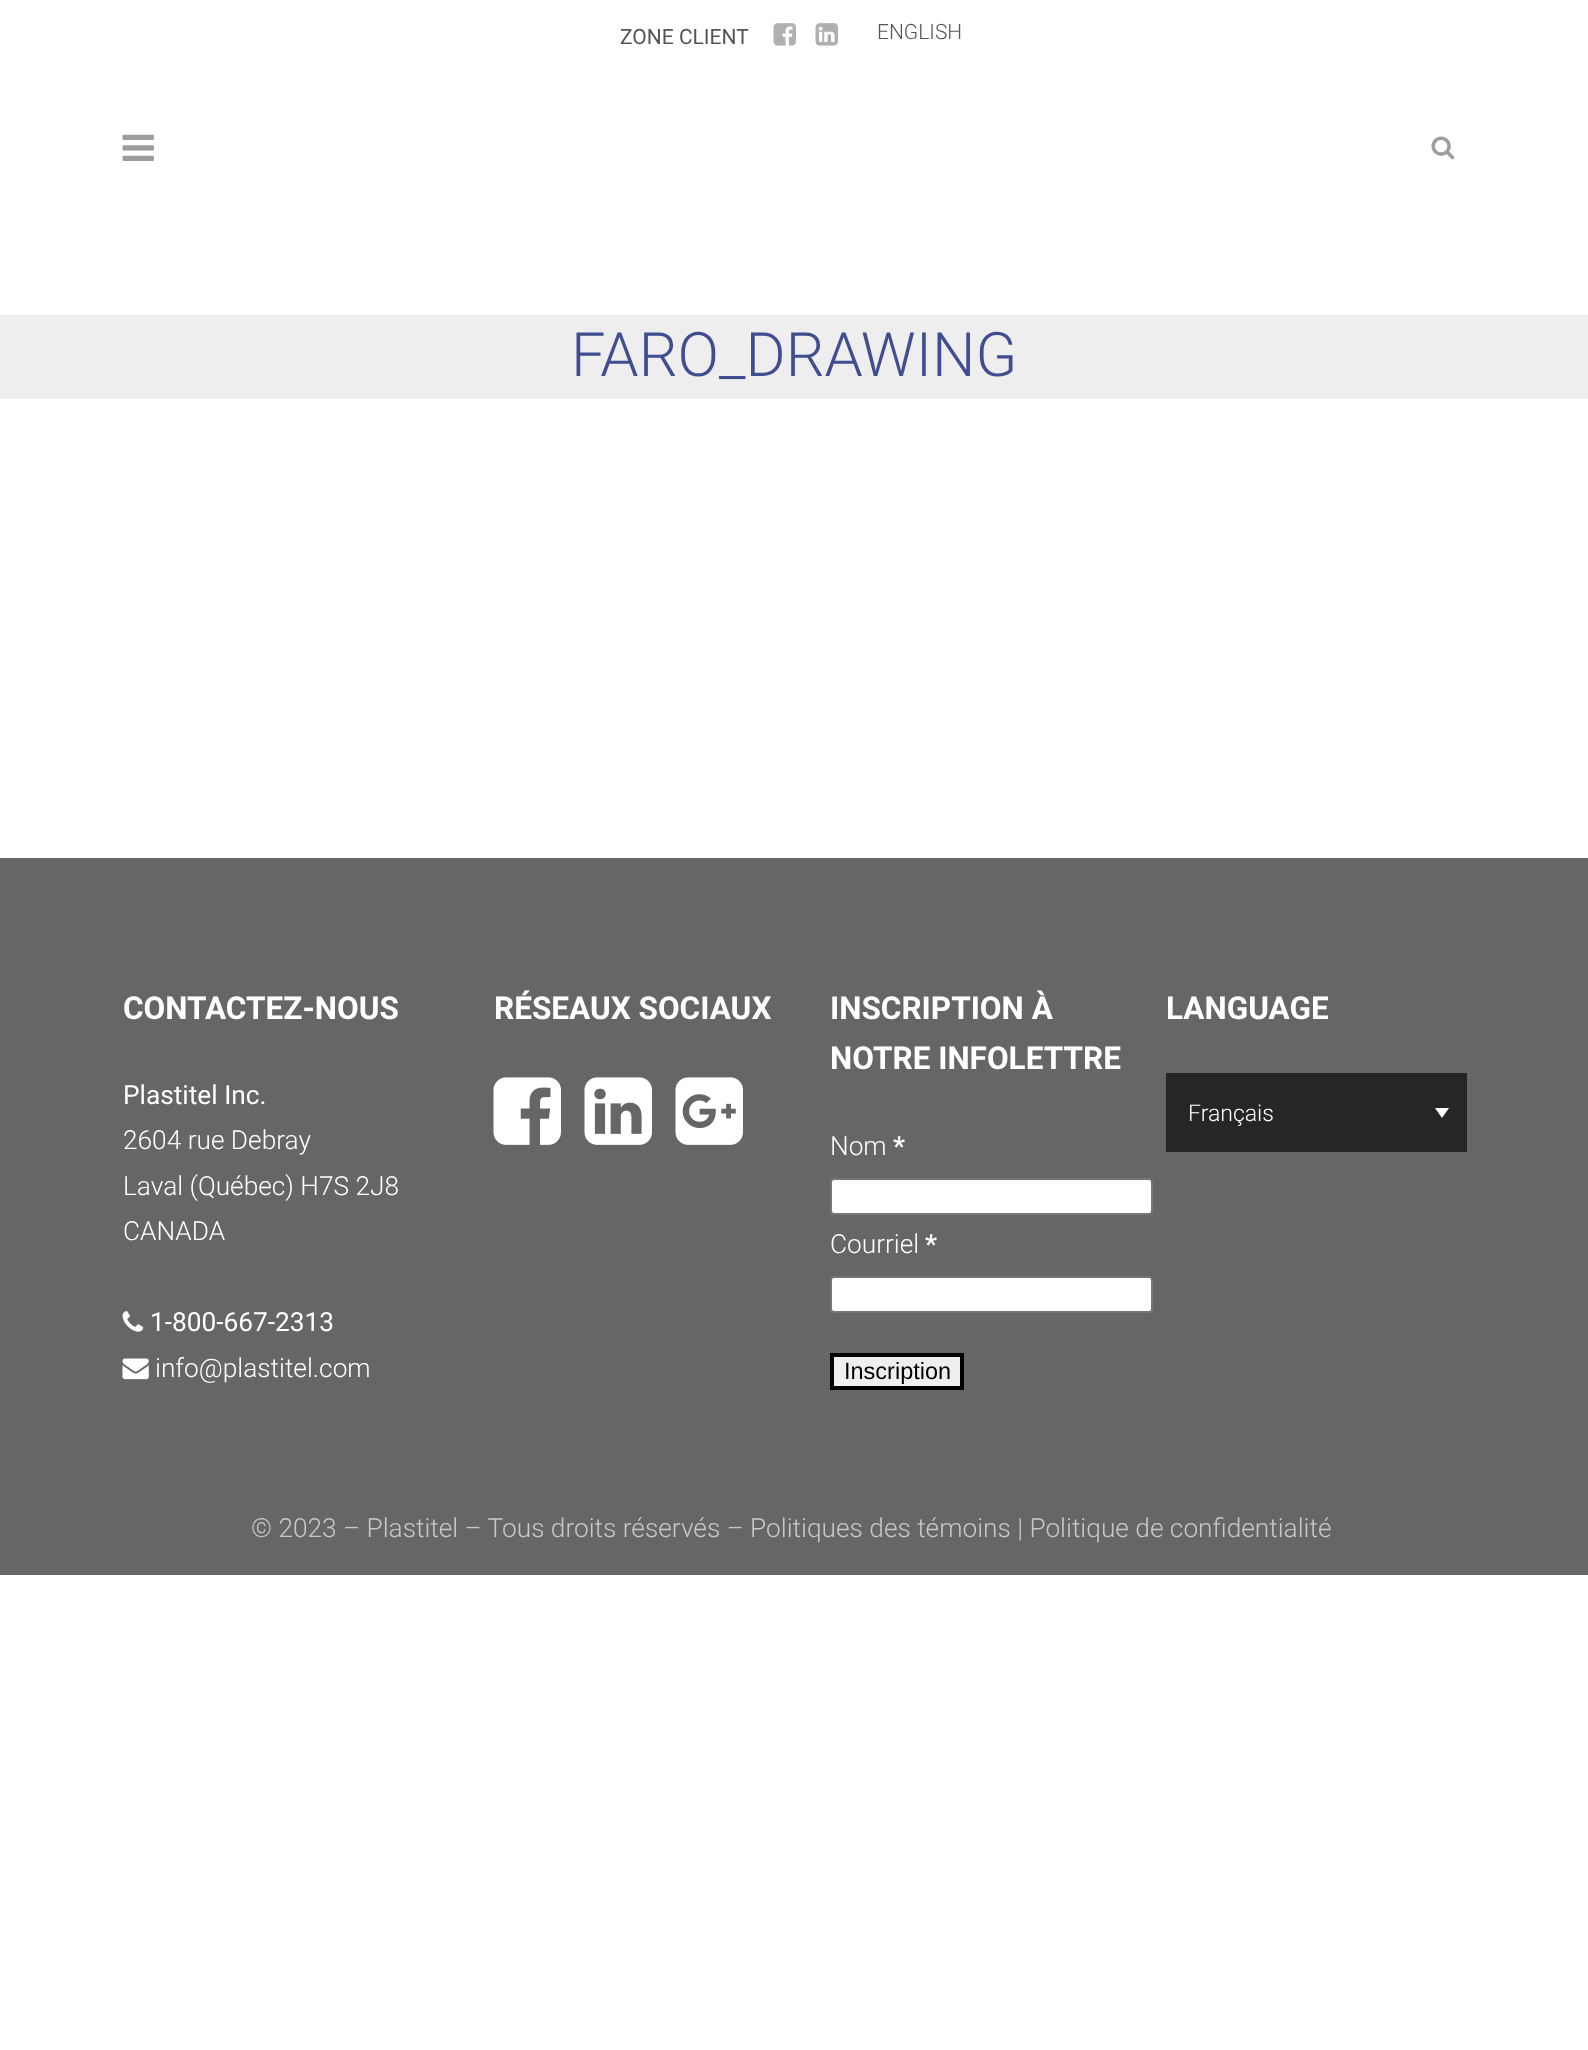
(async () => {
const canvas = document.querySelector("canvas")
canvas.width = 1588
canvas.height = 2050
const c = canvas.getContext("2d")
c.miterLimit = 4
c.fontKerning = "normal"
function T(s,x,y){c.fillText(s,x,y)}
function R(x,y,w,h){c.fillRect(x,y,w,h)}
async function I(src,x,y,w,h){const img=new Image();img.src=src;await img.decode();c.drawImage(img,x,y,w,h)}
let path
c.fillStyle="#fff"
R(0,0,1588,2050)
c.font="21px Roboto"
c.fillStyle="#555"
T("ZONE CLIENT",620,44)
await I("1.png",773,23,23,23)
await I("2.png",815,23,23,23)
c.font="300 21px Roboto"
T("ENGLISH",877,39)
await I("3.png",122,134,32,27)
await I("4.png",1431,136,24,24)
c.fillStyle="#eee"
R(0,315,1588,84)
c.font="300 61.25px Roboto"
c.fillStyle="#404e8f"
T("FARO_DRAWING",571,376)
c.fillStyle="#666"
R(0,858,1588,717)
c.font="bold 31.5px Roboto"
c.fillStyle="#fff"
T("CONTACTEZ-NOUS",123,1019)
c.font="26.25px Roboto"
T("Plastitel Inc.",123,1104)
c.font="300 26.25px Roboto"
T("2604 rue Debray",123,1149)
T("Laval (Québec) H7S 2J8",123,1195)
T("CANADA",123,1240)
await I("5.png",122,1311,22,21)
c.font="26.25px Roboto"
T("1-800-667-2313",150,1331)
await I("6.png",122,1358,27,22)
c.font="300 26.25px Roboto"
T("info@plastitel.com",155,1377)
c.font="bold 31.5px Roboto"
T("RÉSEAUX SOCIAUX",494,1019)
await I("7.png",493,1077,68,68)
await I("8.png",584,1077,68,68)
await I("9.png",675,1077,68,68)
T("INSCRIPTION À",830,1019)
T("NOTRE INFOLETTRE",830,1069)
c.font="300 26.25px Roboto"
T("Nom",830,1155)
c.font="bold 26.25px Roboto"
T("*",893,1155)
c.beginPath()
c.roundRect(831,1179,321,35,3)
c.fill()
c.strokeStyle="#767676"
c.lineWidth=2
c.stroke()
c.font="300 26.25px Roboto"
T("Courriel",830,1253)
c.font="bold 26.25px Roboto"
T("*",925,1253)
c.beginPath()
c.roundRect(831,1277,321,35,3)
c.fill()
c.stroke()
c.fillStyle="#efefef"
c.beginPath()
c.rect(832,1355,130,33)
c.fill()
c.strokeStyle="#000"
c.lineWidth=4
c.stroke()
c.font="23.5px Liberation Sans"
c.fillStyle="#000"
T("Inscription",844,1379)
c.font="bold 31.5px Roboto"
c.fillStyle="#fff"
T("LANGUAGE",1166,1019)
c.fillStyle="#262626"
R(1166,1073,301,79)
c.font="300 23px Roboto"
c.fillStyle="#fff"
T("Français",1188,1121)
path = new Path2D("M1435 1108h14l-7 10z")
c.fill(path)
c.font="300 26.25px Roboto"
c.fillStyle="#c8c8c8"
T("© 2023 – Plastitel – Tous droits réservés – Politiques des témoins | Politique de confidentialité",251,1537)
})()
